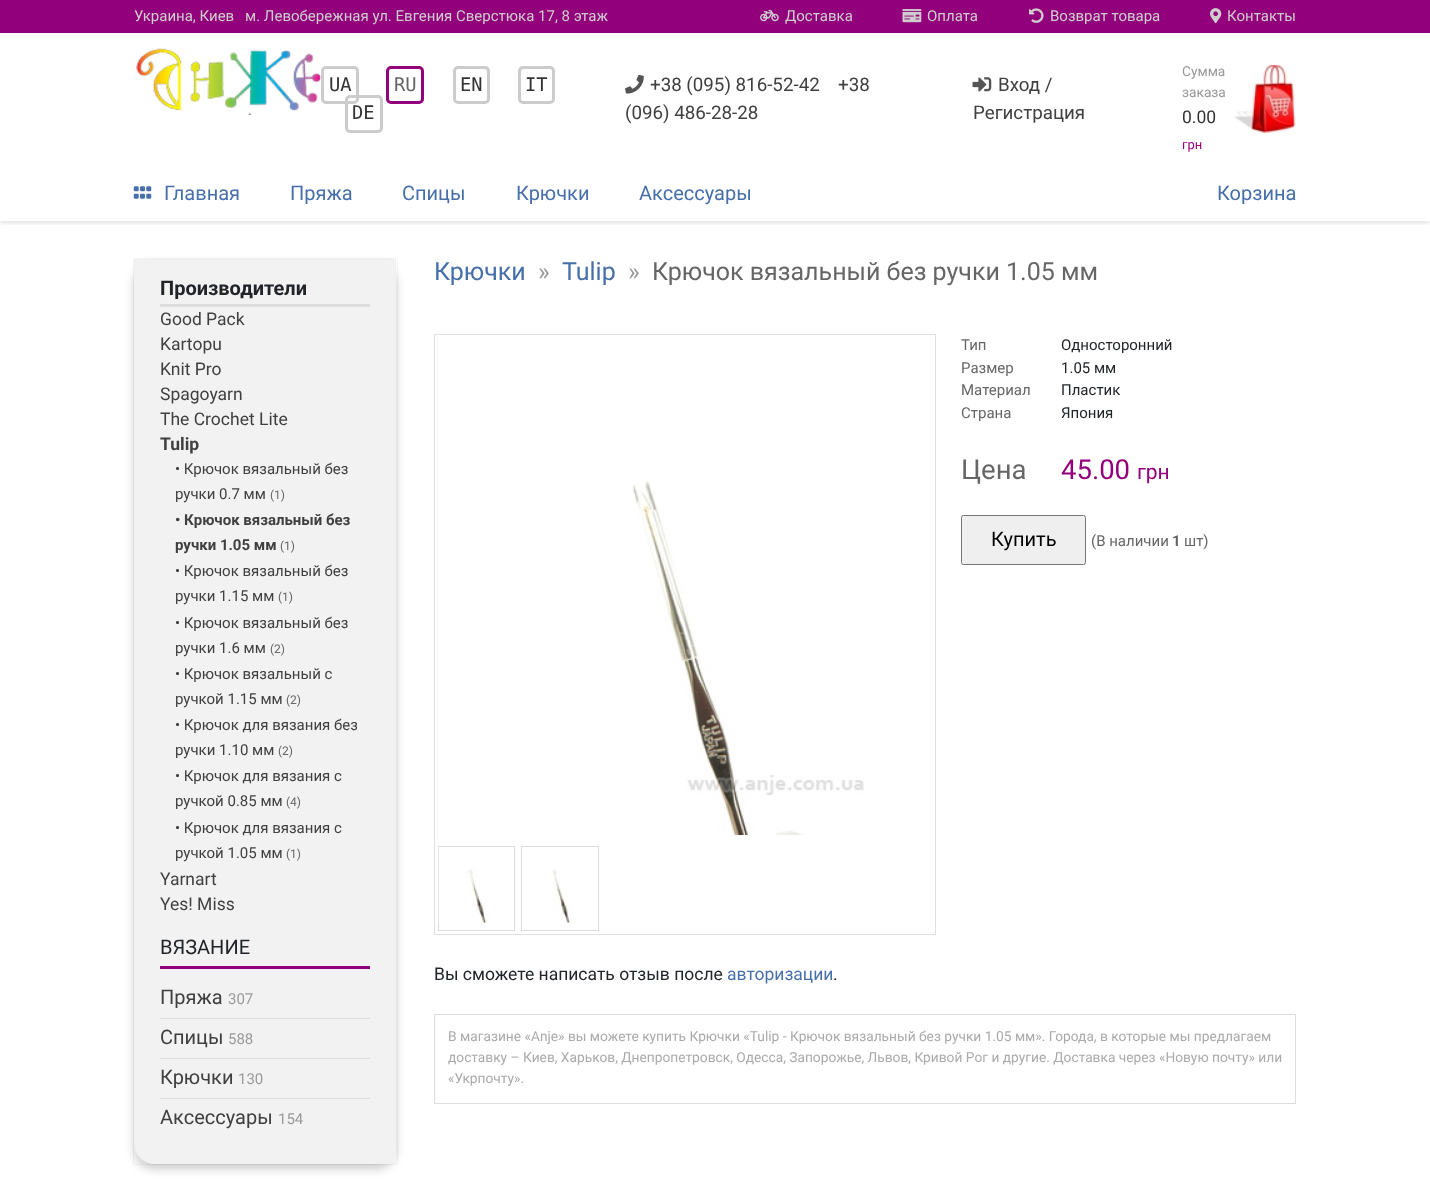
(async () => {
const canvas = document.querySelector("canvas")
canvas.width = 1430
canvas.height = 1181
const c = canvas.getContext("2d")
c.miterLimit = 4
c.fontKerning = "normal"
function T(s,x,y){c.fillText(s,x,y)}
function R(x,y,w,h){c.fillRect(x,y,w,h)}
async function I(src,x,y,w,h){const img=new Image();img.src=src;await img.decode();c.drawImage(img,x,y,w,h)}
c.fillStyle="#fff"
R(0,0,1430,1181)
c.fillStyle="#93007b"
R(0,0,1430,33)
c.font="15px Roboto"
c.fillStyle="#cecece"
T("Украина, Киев",134,21)
T("м. Левобережная ул. Евгения Сверстюка 17, 8 этаж",245,21)
await I("1.png",760,10,19,12)
T("Доставка",785,21)
await I("2.png",902,9,20,14)
T("Оплата",927,21)
await I("3.png",1029,8,15,15)
T("Возврат товара",1050,21)
await I("4.png",1210,8,12,16)
T("Контакты",1227,21)
await I("5.png",136,48,185,67)
c.beginPath()
c.roundRect(322.5,67.5,35,35,3.5)
c.strokeStyle="#ccc"
c.lineWidth=3
c.stroke()
c.font="18.75px DejaVu Sans Mono"
c.fillStyle="#333"
T("UA",329,91)
c.beginPath()
c.roundRect(387.5,67.5,35,35,3.5)
c.strokeStyle="#93007b"
c.stroke()
c.fillStyle="#666"
T("RU",394,91)
c.beginPath()
c.roundRect(454.5,67.5,34,35,3.5)
c.strokeStyle="#ccc"
c.stroke()
c.fillStyle="#333"
T("EN",460,91)
c.beginPath()
c.roundRect(519.5,67.5,34,35,3.5)
c.stroke()
T("IT",525,91)
c.beginPath()
c.roundRect(346.5,96.5,35,35,3.5)
c.stroke()
T("DE",352,119)
await I("6.png",625,74,19,20)
c.font="18.75px Roboto"
c.fillStyle="#404042"
T("+38 (095) 816-52-42",650,91)
T("+38",838,91)
T("(096) 486-28-28",625,119)
await I("7.png",972,77,20,15)
T("Вход /",998,91)
T("Регистрация",973,119)
c.font="13.75px Roboto"
c.fillStyle="#999"
T("Сумма",1182,76)
T("заказа",1182,97)
c.font="17.5px Roboto"
c.fillStyle="#333"
T("0.00",1182,123)
c.font="13px Roboto"
c.fillStyle="#93007b"
T("грн",1182,149)
await I("8.png",1234,65,62,69)
c.save()
c.beginPath()
c.rect(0,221,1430,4)
c.clip()
c.fillStyle="#0000001f"
c.filter="blur(2px)"
c.beginPath()
c.rect(0,168,1430,55)
c.fill()
c.filter="none"
c.restore()
await I("9.png",133,186,19,13)
c.font="20px Roboto"
c.fillStyle="#466fab"
T("Главная",164,200)
T("Пряжа",290,200)
T("Спицы",402,200)
T("Крючки",516,200)
T("Аксессуары",639,200)
T("Корзина",1217,200)
c.fillStyle="#00000033"
c.filter="blur(5px)"
c.beginPath()
c.roundRect(134,264,262,905,20)
c.fill()
c.filter="none"
c.strokeStyle="#0000000a"
c.lineWidth=1
c.strokeRect(133.5,258.5,264,906)
c.fillStyle="#f2f2f2"
c.beginPath()
c.roundRect(134.5,259.5,261,904,[0,0,0,19.5])
c.fill()
c.strokeStyle="#f0f0f0"
c.stroke()
c.fillStyle="#ddd"
R(160,304,210,3)
c.font="bold 20px Roboto"
c.fillStyle="#212529"
T("Производители",160,295)
c.font="17.5px Roboto"
c.fillStyle="#404042"
T("Good Pack",160,325)
T("Kartopu",160,350)
T("Knit Pro",160,375)
T("Spagoyarn",160,400)
T("The Crochet Lite",160,425)
c.font="bold 17.5px Roboto"
T("Tulip",160,450)
c.font="15px Roboto"
T("• Крючок вязальный без",175,474)
T("ручки 0.7 мм",175,499)
c.font="12px Roboto"
c.fillStyle="#666"
T("(1)",270,499)
c.font="bold 15px Roboto"
c.fillStyle="#404042"
T("• Крючок вязальный без",175,525)
T("ручки 1.05 мм",175,550)
c.font="12px Roboto"
c.fillStyle="#666"
T("(1)",280,550)
c.font="15px Roboto"
c.fillStyle="#404042"
T("• Крючок вязальный без",175,576)
T("ручки 1.15 мм",175,601)
c.font="12px Roboto"
c.fillStyle="#666"
T("(1)",278,601)
c.font="15px Roboto"
c.fillStyle="#404042"
T("• Крючок вязальный без",175,628)
T("ручки 1.6 мм",175,653)
c.font="12px Roboto"
c.fillStyle="#666"
T("(2)",270,653)
c.font="15px Roboto"
c.fillStyle="#404042"
T("• Крючок вязальный с",175,679)
T("ручкой 1.15 мм",175,704)
c.font="12px Roboto"
c.fillStyle="#666"
T("(2)",286,704)
c.font="15px Roboto"
c.fillStyle="#404042"
T("• Крючок для вязания без",175,730)
T("ручки 1.10 мм",175,755)
c.font="12px Roboto"
c.fillStyle="#666"
T("(2)",278,755)
c.font="15px Roboto"
c.fillStyle="#404042"
T("• Крючок для вязания с",175,781)
T("ручкой 0.85 мм",175,806)
c.font="12px Roboto"
c.fillStyle="#666"
T("(4)",286,806)
c.font="15px Roboto"
c.fillStyle="#404042"
T("• Крючок для вязания с",175,833)
T("ручкой 1.05 мм",175,858)
c.font="12px Roboto"
c.fillStyle="#666"
T("(1)",286,858)
c.font="17.5px Roboto"
c.fillStyle="#404042"
T("Yarnart",160,885)
T("Yes! Miss",160,910)
c.fillStyle="#93007b"
R(160,966,210,3)
c.font="20px Roboto"
c.fillStyle="#212529"
T("ВЯЗАНИЕ",160,954)
c.fillStyle="#ddd"
R(160,1018,210,1)
c.fillStyle="#404042"
T("Пряжа",160,1004)
c.font="15px Roboto"
c.fillStyle="#999"
T("307",228,1004)
c.fillStyle="#ddd"
R(160,1058,210,1)
c.font="20px Roboto"
c.fillStyle="#404042"
T("Спицы",160,1044)
c.font="15px Roboto"
c.fillStyle="#999"
T("588",228,1044)
c.fillStyle="#ddd"
R(160,1098,210,1)
c.font="20px Roboto"
c.fillStyle="#404042"
T("Крючки",160,1084)
c.font="15px Roboto"
c.fillStyle="#999"
T("130",238,1084)
c.font="20px Roboto"
c.fillStyle="#404042"
T("Аксессуары",160,1124)
c.font="15px Roboto"
c.fillStyle="#999"
T("154",278,1124)
c.font="25px Roboto"
c.fillStyle="#466fab"
T("Крючки",434,280)
c.fillStyle="#999"
T("»",538,280)
c.fillStyle="#466fab"
T("Tulip",562,280)
c.fillStyle="#999"
T("»",628,280)
c.fillStyle="#666"
T("Крючок вязальный без ручки 1.05 мм",652,280)
c.strokeStyle="#e0e0e0"
c.strokeRect(434.5,334.5,501,600)
await I("10.png",632,480,232,355)
c.strokeStyle="#ddd"
c.strokeRect(438.5,846.5,76,84)
await I("11.png",438,847,54,76)
c.strokeRect(521.5,846.5,77,84)
await I("12.png",551,868,25,55)
c.font="15px Roboto"
T("Тип",961,350)
c.fillStyle="#212529"
T("Односторонний",1061,350)
c.fillStyle="#666"
T("Размер",961,373)
c.fillStyle="#212529"
T("1.05 мм",1061,373)
c.fillStyle="#666"
T("Материал",961,395)
c.fillStyle="#212529"
T("Пластик",1061,395)
c.fillStyle="#666"
T("Страна",961,418)
c.fillStyle="#212529"
T("Япония",1061,418)
c.font="27.5px Roboto"
c.fillStyle="#666"
T("Цена",961,479)
c.fillStyle="#93007b"
T("45.00",1061,479)
c.font="21px Roboto"
T("грн",1137,479)
c.fillStyle="#efefef"
c.beginPath()
c.roundRect(961.5,515.5,124,49,2)
c.fill()
c.strokeStyle="#767676"
c.stroke()
c.font="20px Roboto"
c.fillStyle="#000"
T("Купить",991,546)
c.font="15px Roboto"
c.fillStyle="#666"
T("(В наличии",1091,546)
c.font="bold 15px Roboto"
T("1",1172,546)
c.font="15px Roboto"
T("шт)",1184,546)
c.font="17.5px Roboto"
c.fillStyle="#212529"
T("Вы сможете написать отзыв после",434,980)
c.fillStyle="#466fab"
T("авторизации",727,980)
c.fillStyle="#212529"
T(".",833,980)
c.strokeStyle="#ddd"
c.strokeRect(434.5,1014.5,861,89)
c.font="13.75px Roboto"
c.fillStyle="#aaa"
T("В магазине «Anje» вы можете купить Крючки «Tulip - Крючок вязальный без ручки 1.05 мм». Города, в которые мы предлагаем",448,1041)
T("доставку – Киев, Харьков, Днепропетровск, Одесса, Запорожье, Львов, Кривой Рог и другие. Доставка через «Новую почту» или",448,1062)
T("«Укрпочту».",448,1083)
})()
